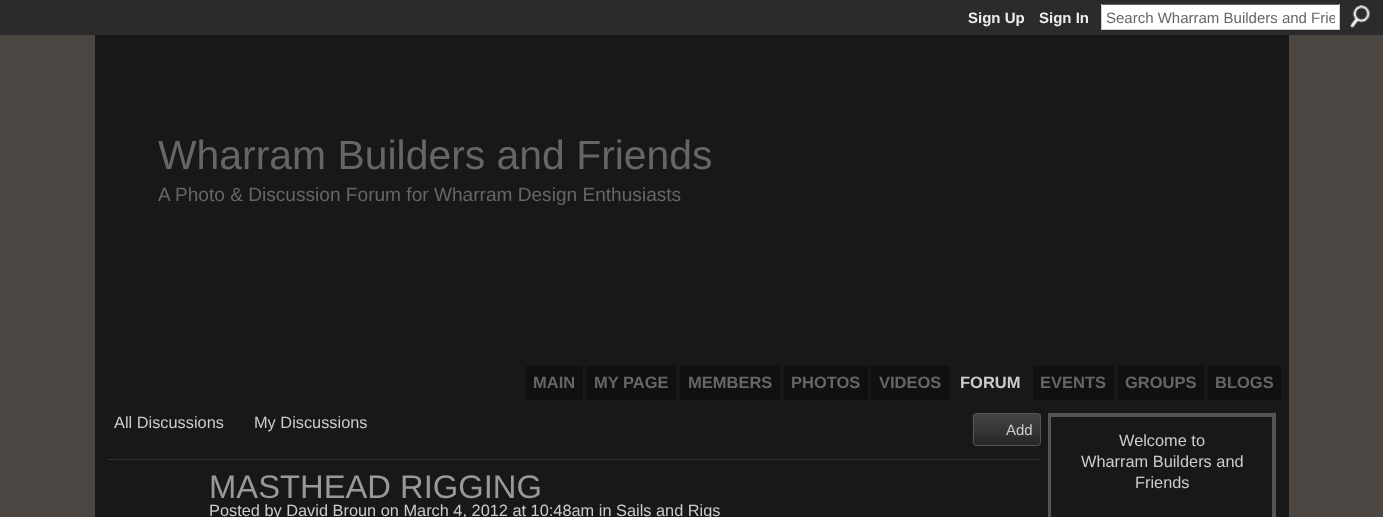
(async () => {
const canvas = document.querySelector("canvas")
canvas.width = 1383
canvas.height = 517
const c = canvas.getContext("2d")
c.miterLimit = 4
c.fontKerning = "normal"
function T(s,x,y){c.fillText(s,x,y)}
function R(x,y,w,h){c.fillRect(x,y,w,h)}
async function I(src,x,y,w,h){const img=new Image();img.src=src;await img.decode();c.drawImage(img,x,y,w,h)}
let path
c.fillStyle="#4b4642"
R(0,0,1383,517)
c.fillStyle="#2c2a2a"
R(0,0,1383,35)
c.font="bold 15px Liberation Sans"
c.fillStyle="#eee"
T("Sign Up",968,23)
T("Sign In",1039,23)
c.fillStyle="#fff"
R(1102,5,237,24)
c.fillStyle="#666"
R(1101,4,239,1)
c.fillStyle="#ccc"
R(1339,4,1,26)
R(1101,29,239,1)
R(1101,4,1,26)
c.save()
c.beginPath()
c.rect(1106,9,229,17)
c.clip()
c.font="15px Liberation Sans"
c.fillStyle="#666"
T("Search Wharram Builders and Frie",1106,23)
c.restore()
await I("1.png",1350,5,20,23)
c.fillStyle="#191818"
R(95,35,1194,482)
c.font="40.9px Liberation Sans"
c.fillStyle="#666"
T("Wharram Builders and Friends",158,169)
c.font="19.1px Liberation Sans"
T("A Photo & Discussion Forum for Wharram Design Enthusiasts",158,201)
c.fillStyle="#101010"
R(526,366,57,34)
c.font="bold 16.5px Liberation Sans"
c.fillStyle="#666"
T("MAIN",533,388)
c.fillStyle="#101010"
R(586,366,90,34)
c.fillStyle="#666"
T("MY PAGE",594,388)
c.fillStyle="#101010"
R(680,366,100,34)
c.fillStyle="#666"
T("MEMBERS",688,388)
c.fillStyle="#101010"
R(784,366,84,34)
c.fillStyle="#666"
T("PHOTOS",791,388)
c.fillStyle="#101010"
R(871,366,78,34)
c.fillStyle="#666"
T("VIDEOS",879,388)
c.fillStyle="#ccc"
T("FORUM",960,388)
c.fillStyle="#101010"
R(1033,366,81,34)
c.fillStyle="#666"
T("EVENTS",1040,388)
c.fillStyle="#101010"
R(1118,366,86,34)
c.fillStyle="#666"
T("GROUPS",1125,388)
c.fillStyle="#101010"
R(1208,366,73,34)
c.fillStyle="#666"
T("BLOGS",1215,388)
c.fillStyle="#333"
R(108,459,933,1)
c.font="16.35px Liberation Sans"
c.fillStyle="#ccc"
T("All Discussions",114,428)
T("My Discussions",254,428)
await I("2.png",972,413,69,33)
c.beginPath()
c.roundRect(973.5,413.5,67,32,3.5)
c.strokeStyle="#555454"
c.stroke()
c.font="15px Liberation Sans"
T("Add",1006,435)
c.font="32.75px Liberation Sans"
c.fillStyle="#999"
T("MASTHEAD RIGGING",209,498)
c.font="16.35px Liberation Sans"
c.fillStyle="#ccc"
T("Posted by David Broun on March 4, 2012 at 10:48am in Sails and Rigs",209,516)
c.fillStyle="#555454"
R(1048,413,228,4)
path = new Path2D("M1276 412v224l-4-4v-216z")
c.fill(path)
path = new Path2D("M1048 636v-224l3 4v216z")
c.fill(path)
c.fillStyle="#ccc"
T("Welcome to",1119,446)
T("Wharram Builders and",1081,467)
T("Friends",1135,488)
})()
